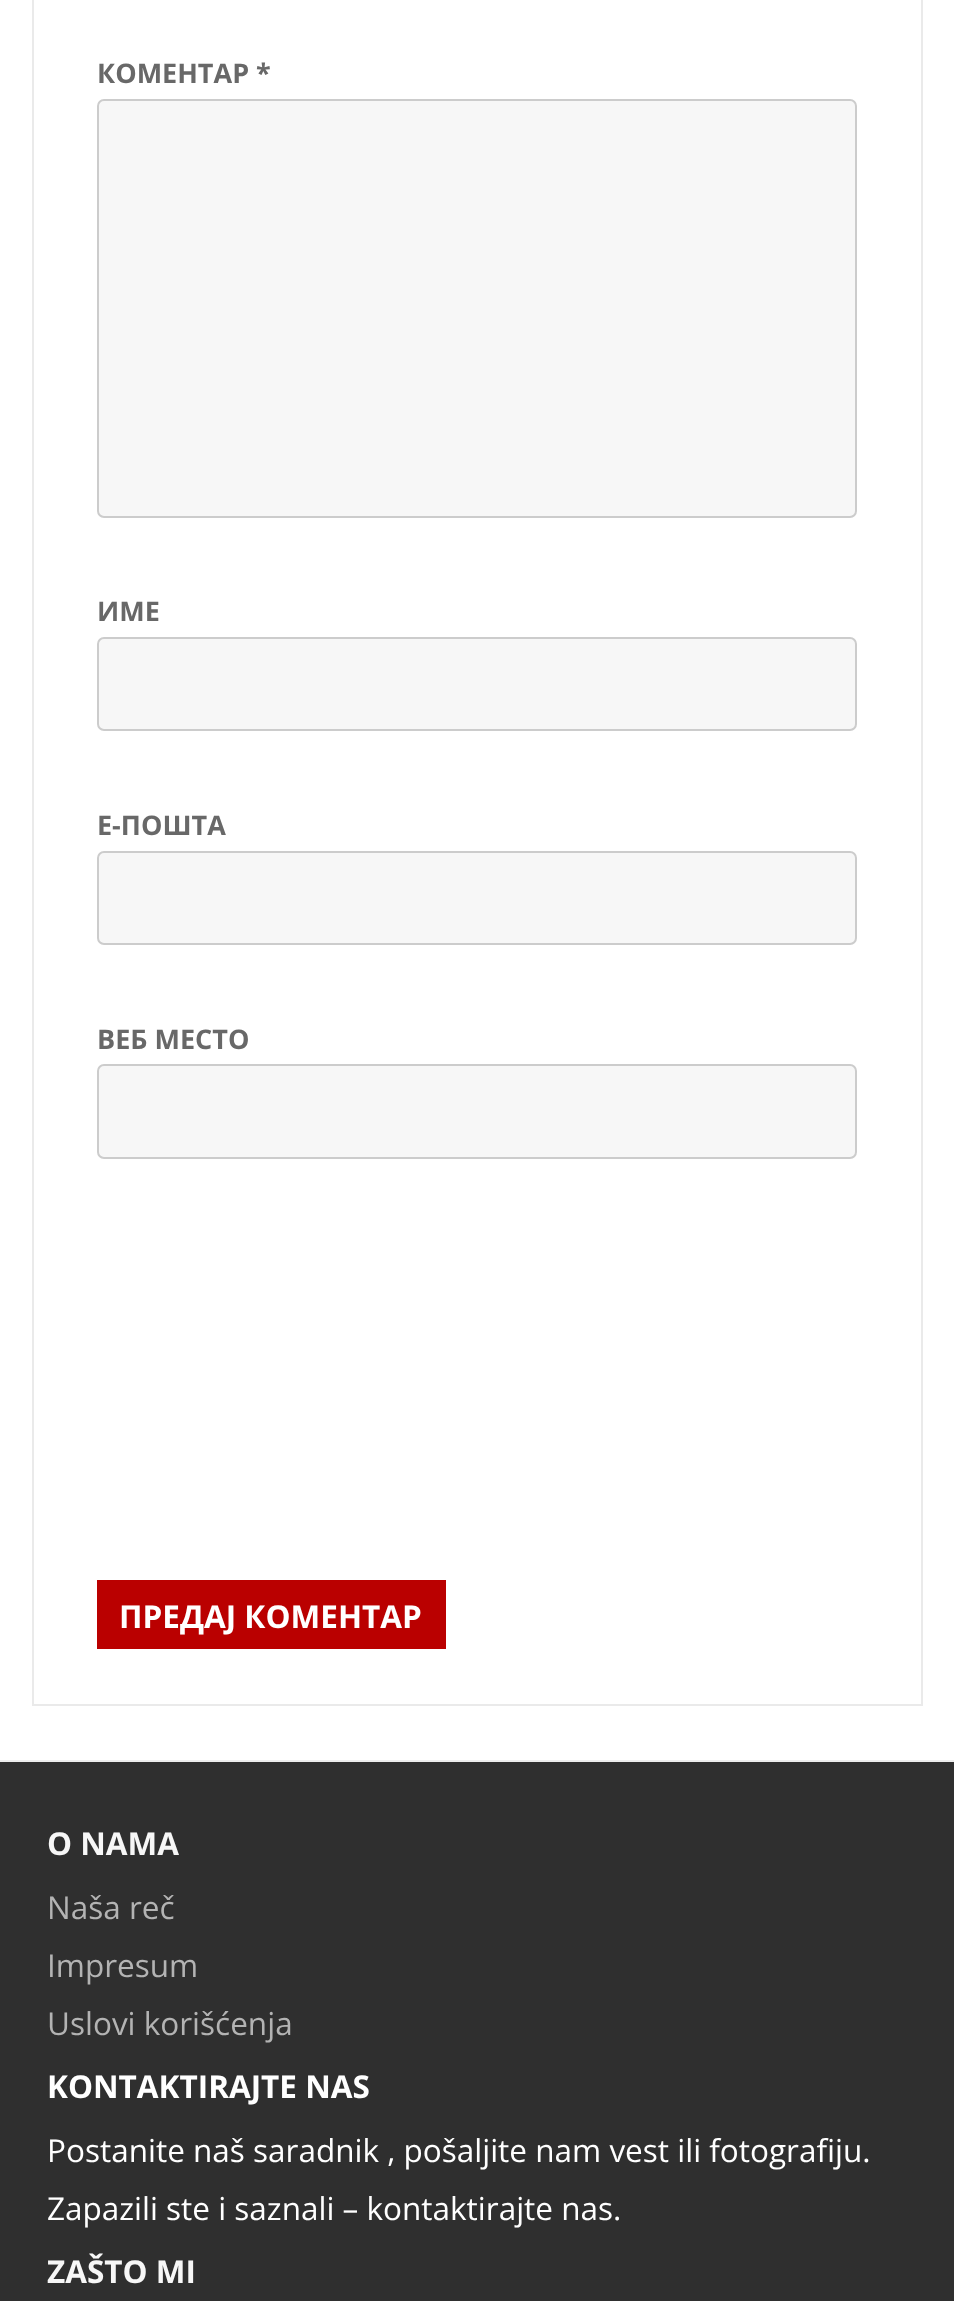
(async () => {
const canvas = document.querySelector("canvas")
canvas.width = 954
canvas.height = 2301
const c = canvas.getContext("2d")
c.miterLimit = 4
c.fontKerning = "normal"
function T(s,x,y){c.fillText(s,x,y)}
function R(x,y,w,h){c.fillRect(x,y,w,h)}
c.fillStyle="#fff"
R(0,0,954,2301)
c.strokeStyle="#eaeaea"
c.lineWidth=2
c.strokeRect(33,-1,889,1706)
c.font="bold 27px Open Sans"
c.fillStyle="#686868"
T("КОМЕНТАР *",97,83)
c.fillStyle="#f7f7f7"
c.beginPath()
c.roundRect(98,100,758,417,6)
c.fill()
c.strokeStyle="#ccc"
c.stroke()
c.fillStyle="#686868"
T("ИМЕ",97,621)
c.fillStyle="#f7f7f7"
c.beginPath()
c.roundRect(98,638,758,92,6)
c.fill()
c.stroke()
c.fillStyle="#686868"
T("Е-ПОШТА",97,835)
c.fillStyle="#f7f7f7"
c.beginPath()
c.roundRect(98,852,758,92,6)
c.fill()
c.stroke()
c.fillStyle="#686868"
T("ВЕБ МЕСТО",97,1049)
c.fillStyle="#f7f7f7"
c.beginPath()
c.roundRect(98,1065,758,93,6)
c.fill()
c.stroke()
c.fillStyle="#ba0000"
R(97,1580,349,69)
c.font="bold 31.5px Open Sans"
c.fillStyle="#fff"
T("ПРЕДАЈ КОМЕНТАР",119,1628)
c.fillStyle="#ededed"
R(0,1760,954,2)
c.fillStyle="#2f2f2f"
R(0,1762,954,539)
c.fillStyle="#f7f7f7"
T("O NAMA",47,1855)
c.font="31.5px Open Sans"
c.fillStyle="#b3b3b3"
T("Naša reč",47,1919)
T("Impresum",47,1977)
T("Uslovi korišćenja",47,2035)
c.font="bold 31.5px Open Sans"
c.fillStyle="#fff"
T("KONTAKTIRAJTE NAS",47,2098)
c.font="31.5px Open Sans"
T("Postanite naš saradnik , pošaljite nam vest ili fotografiju.",47,2162)
T("Zapazili ste i saznali – kontaktirajte nas.",47,2220)
c.font="bold 31.5px Open Sans"
c.fillStyle="#f7f7f7"
T("ZAŠTO MI",47,2283)
})()
